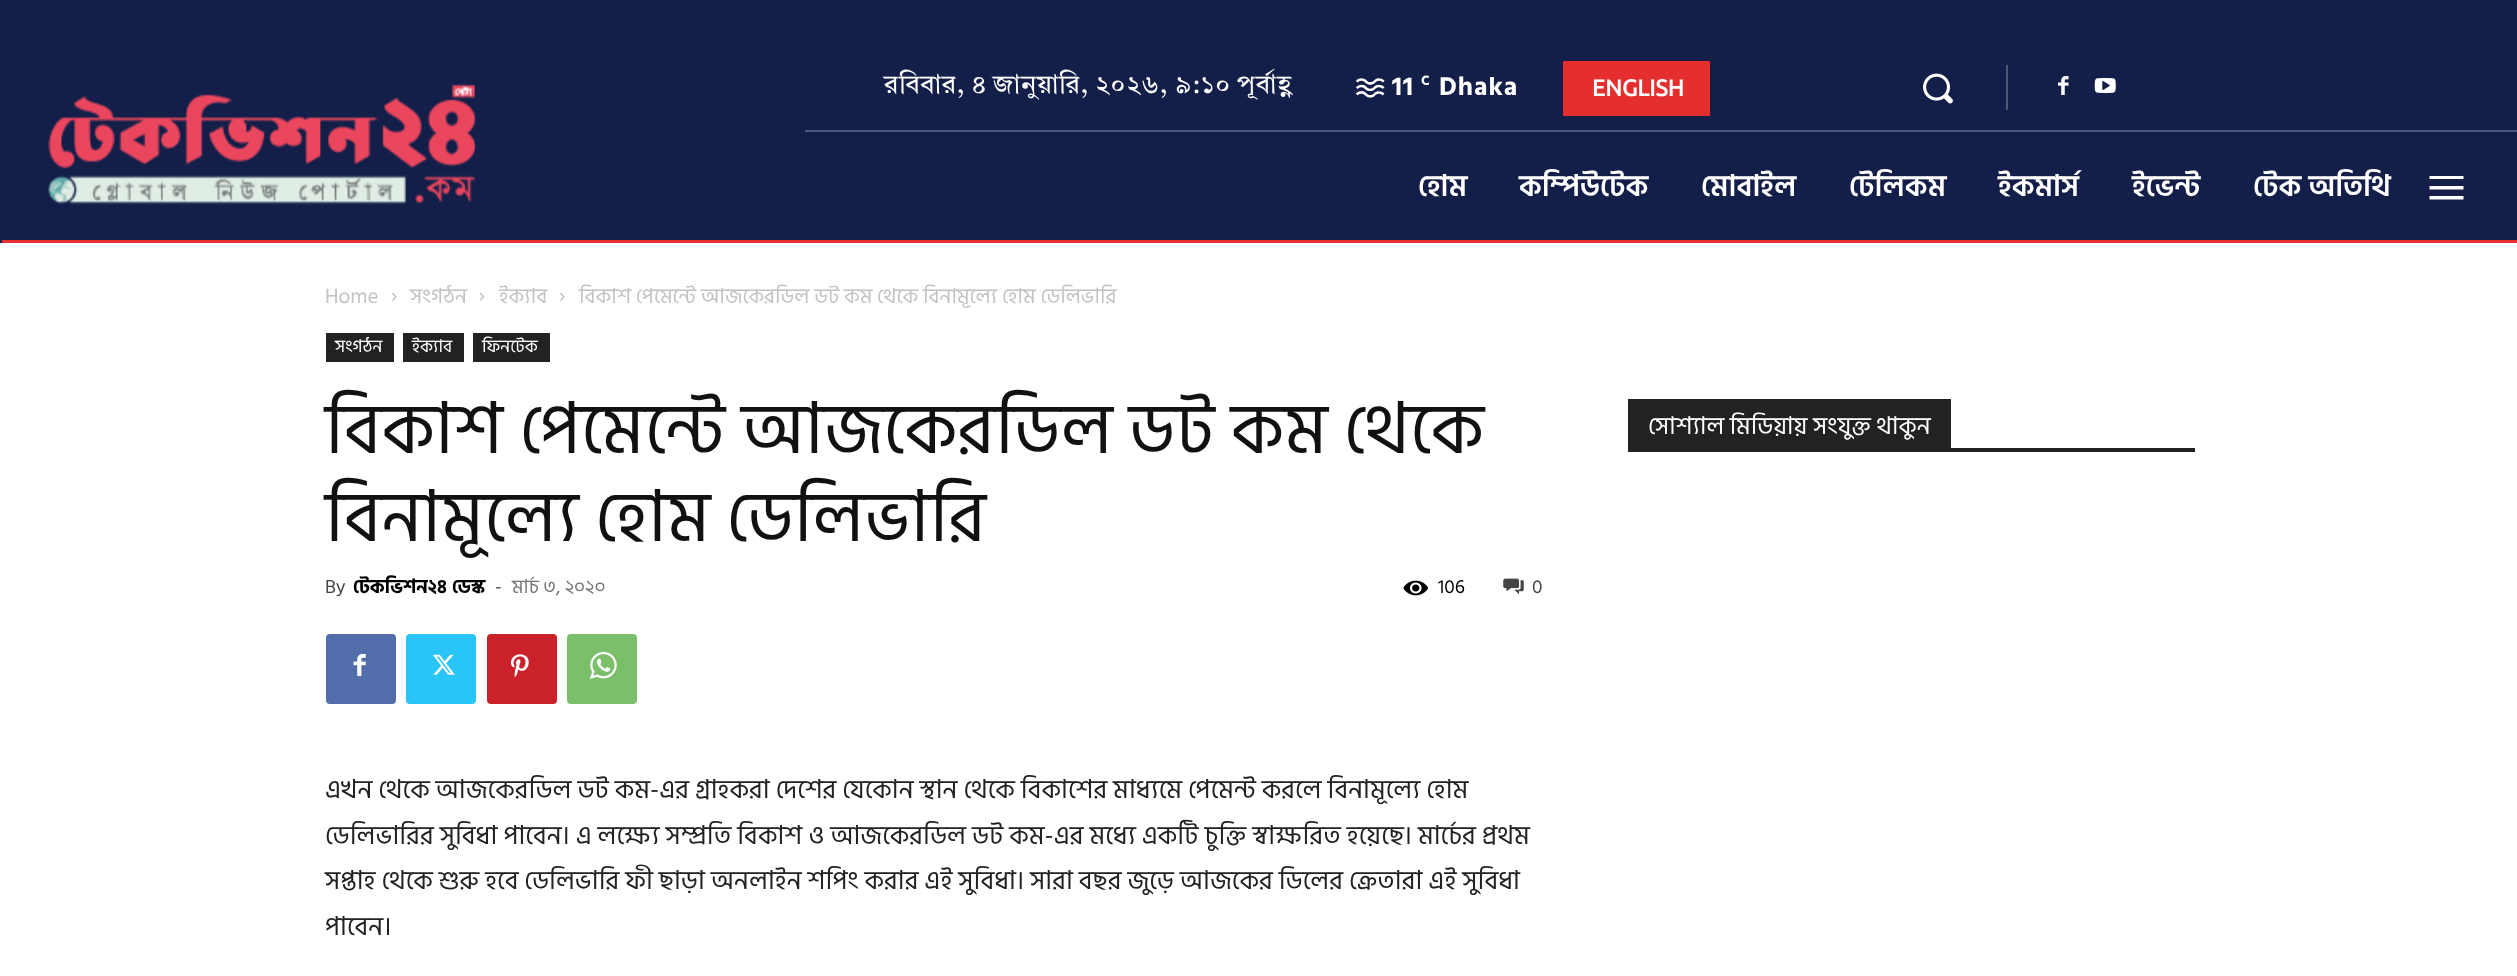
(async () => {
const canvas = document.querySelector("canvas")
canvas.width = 2517
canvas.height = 976
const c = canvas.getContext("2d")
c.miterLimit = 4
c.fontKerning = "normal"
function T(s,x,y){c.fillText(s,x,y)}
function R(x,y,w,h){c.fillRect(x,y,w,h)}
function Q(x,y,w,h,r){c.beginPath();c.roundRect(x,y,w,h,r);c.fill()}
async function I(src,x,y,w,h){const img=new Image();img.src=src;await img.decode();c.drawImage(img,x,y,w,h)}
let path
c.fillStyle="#fff"
R(0,0,2517,976)
c.fillStyle="#131f49"
R(0,0,2517,243)
await I("1.png",48,84,429,121)
c.letterSpacing="0.9px"
c.wordSpacing="-1.5px"
c.font="26.25px Tiro Bangla"
c.fillStyle="#fff"
T("রবিবার, ৪ জানুয়ারি, ২০২৬, ৯:১০ পূর্বাহ্ণ",884,93)
await I("2.png",1355,78,30,20)
c.wordSpacing="0px"
c.font="bold 26.25px Hind Siliguri"
T("11",1392,95)
c.font="bold 14px Hind Siliguri"
T("C",1421,85)
c.font="bold 26.25px Hind Siliguri"
T("Dhaka",1439,95)
c.fillStyle="#e52e2e"
R(1563,61,147,55)
c.letterSpacing="0px"
c.font="bold 23px Ubuntu"
c.fillStyle="#fff"
T("ENGLISH",1592,96)
await I("3.png",1923,73,30,31)
c.fillStyle="#4e5777"
R(2006,65,2,45)
await I("4.png",2058,76,11,19)
await I("5.png",2094,78,22,15)
R(805,130,1712,2)
c.font="600 29.75px Hind Siliguri"
c.fillStyle="#fff"
T("হোম",1418,196)
T("কম্পিউটেক",1519,196)
T("মোবাইল",1701,196)
T("টেলিকম",1849,196)
T("ইকমার্স",1998,196)
T("ইভেন্ট",2132,196)
T("টেক অতিথি",2253,196)
path = new Path2D("M2463.5 179h-34v-3h34zm0 10.5h-34v-3.5h34zm0 10h-34v-3.5h34z")
c.fill(path)
c.fillStyle="#e52e2e"
R(2,240,2515,3)
c.font="21px Hind Siliguri"
c.fillStyle="#c3c3c3"
T("Home",325,303)
await I("6.png",392,292,5,9)
T("সংগঠন",410,303)
await I("7.png",479,292,6,9)
T("ইক্যাব",499,303)
await I("6.png",560,292,5,9)
T("বিকাশ পেমেন্টে আজকেরডিল ডট কম থেকে বিনামূল্যে হোম ডেলিভারি",579,303)
c.fillStyle="#222"
R(326,333,68,29)
c.font="17.5px Hind Siliguri"
c.fillStyle="#fff"
T("সংগঠন",335,352)
c.fillStyle="#222"
R(403,333,61,29)
c.fillStyle="#fff"
T("ইক্যাব",412,352)
c.fillStyle="#222"
R(473,333,77,29)
c.fillStyle="#fff"
T("ফিনটেক",482,352)
c.font="71.75px Hind Siliguri"
c.fillStyle="#111"
T("বিকাশ পেমেন্টে আজকেরডিল ডট কম থেকে",325,453)
T("বিনামূল্যে হোম ডেলিভারি",325,541)
c.font="19.25px Hind Siliguri"
c.fillStyle="#444"
T("By",325,593)
c.font="bold 19.25px Hind Siliguri"
c.fillStyle="#000"
T("টেকভিশন২৪ ডেস্ক",353,593)
c.font="19.25px Hind Siliguri"
c.fillStyle="#444"
T("-",495,593)
c.fillStyle="#767676"
T("মার্চ ৩, ২০২০",512,593)
await I("8.png",1403,580,25,16)
c.fillStyle="#000"
T("106",1438,593)
await I("9.png",1503,578,21,17)
c.fillStyle="#444"
T("0",1532,593)
c.fillStyle="#516eab"
Q(326,634,70,70,4)
await I("10.png",353,654,13,22)
c.fillStyle="#29c5f6"
Q(406,634,70,70,4)
await I("11.png",432,654,23,21)
c.fillStyle="#ca212a"
Q(487,634,70,70,4)
await I("12.png",511,654,18,23)
c.fillStyle="#7bbf6a"
Q(567,634,70,70,4)
await I("13.png",589,651,28,28)
c.font="26.25px Hind Siliguri"
c.fillStyle="#222"
T("এখন থেকে আজকেরডিল ডট কম-এর গ্রাহকরা দেশের যেকোন স্থান থেকে বিকাশের মাধ্যমে পেমেন্ট করলে বিনামূল্যে হোম",325,798)
T("ডেলিভারির সুবিধা পাবেন। এ লক্ষ্যে সম্প্রতি বিকাশ ও আজকেরডিল ডট কম-এর মধ্যে একটি চুক্তি স্বাক্ষরিত হয়েছে। মার্চের প্রথম",325,844)
T("সপ্তাহ থেকে শুরু হবে ডেলিভারি ফী ছাড়া অনলাইন শপিং করার এই সুবিধা। সারা বছর জুড়ে আজকের ডিলের ক্রেতারা এই সুবিধা",325,889)
T("পাবেন।",325,935)
R(1628,448,567,4)
R(1628,399,323,49)
c.font="24.5px Hind Siliguri"
c.fillStyle="#fff"
T("সোশ্যাল মিডিয়ায় সংযুক্ত থাকুন",1648,434)
})()
